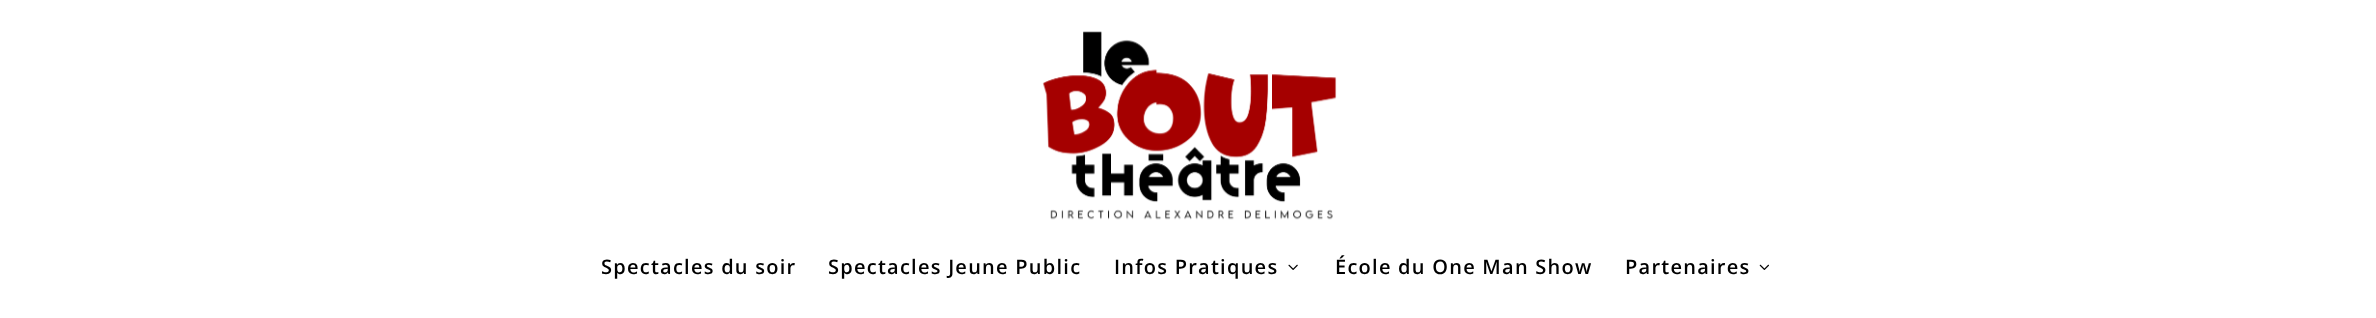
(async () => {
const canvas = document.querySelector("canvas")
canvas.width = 2376
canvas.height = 318
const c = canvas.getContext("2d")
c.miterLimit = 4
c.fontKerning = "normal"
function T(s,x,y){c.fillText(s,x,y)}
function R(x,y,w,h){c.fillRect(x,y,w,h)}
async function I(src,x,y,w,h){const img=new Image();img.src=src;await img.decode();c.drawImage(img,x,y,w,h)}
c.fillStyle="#fff"
R(0,0,2376,318)
await I("1.png",1042,31,295,189)
c.letterSpacing="1.25px"
c.font="600 20px Open Sans"
c.fillStyle="#000"
T("Spectacles du soir",601,274)
T("Spectacles Jeune Public",828,274)
T("Infos Pratiques",1114,274)
await I("2.png",1288,264,10,6)
T("École du One Man Show",1335,274)
T("Partenaires",1625,274)
await I("3.png",1759,264,10,6)
})()
